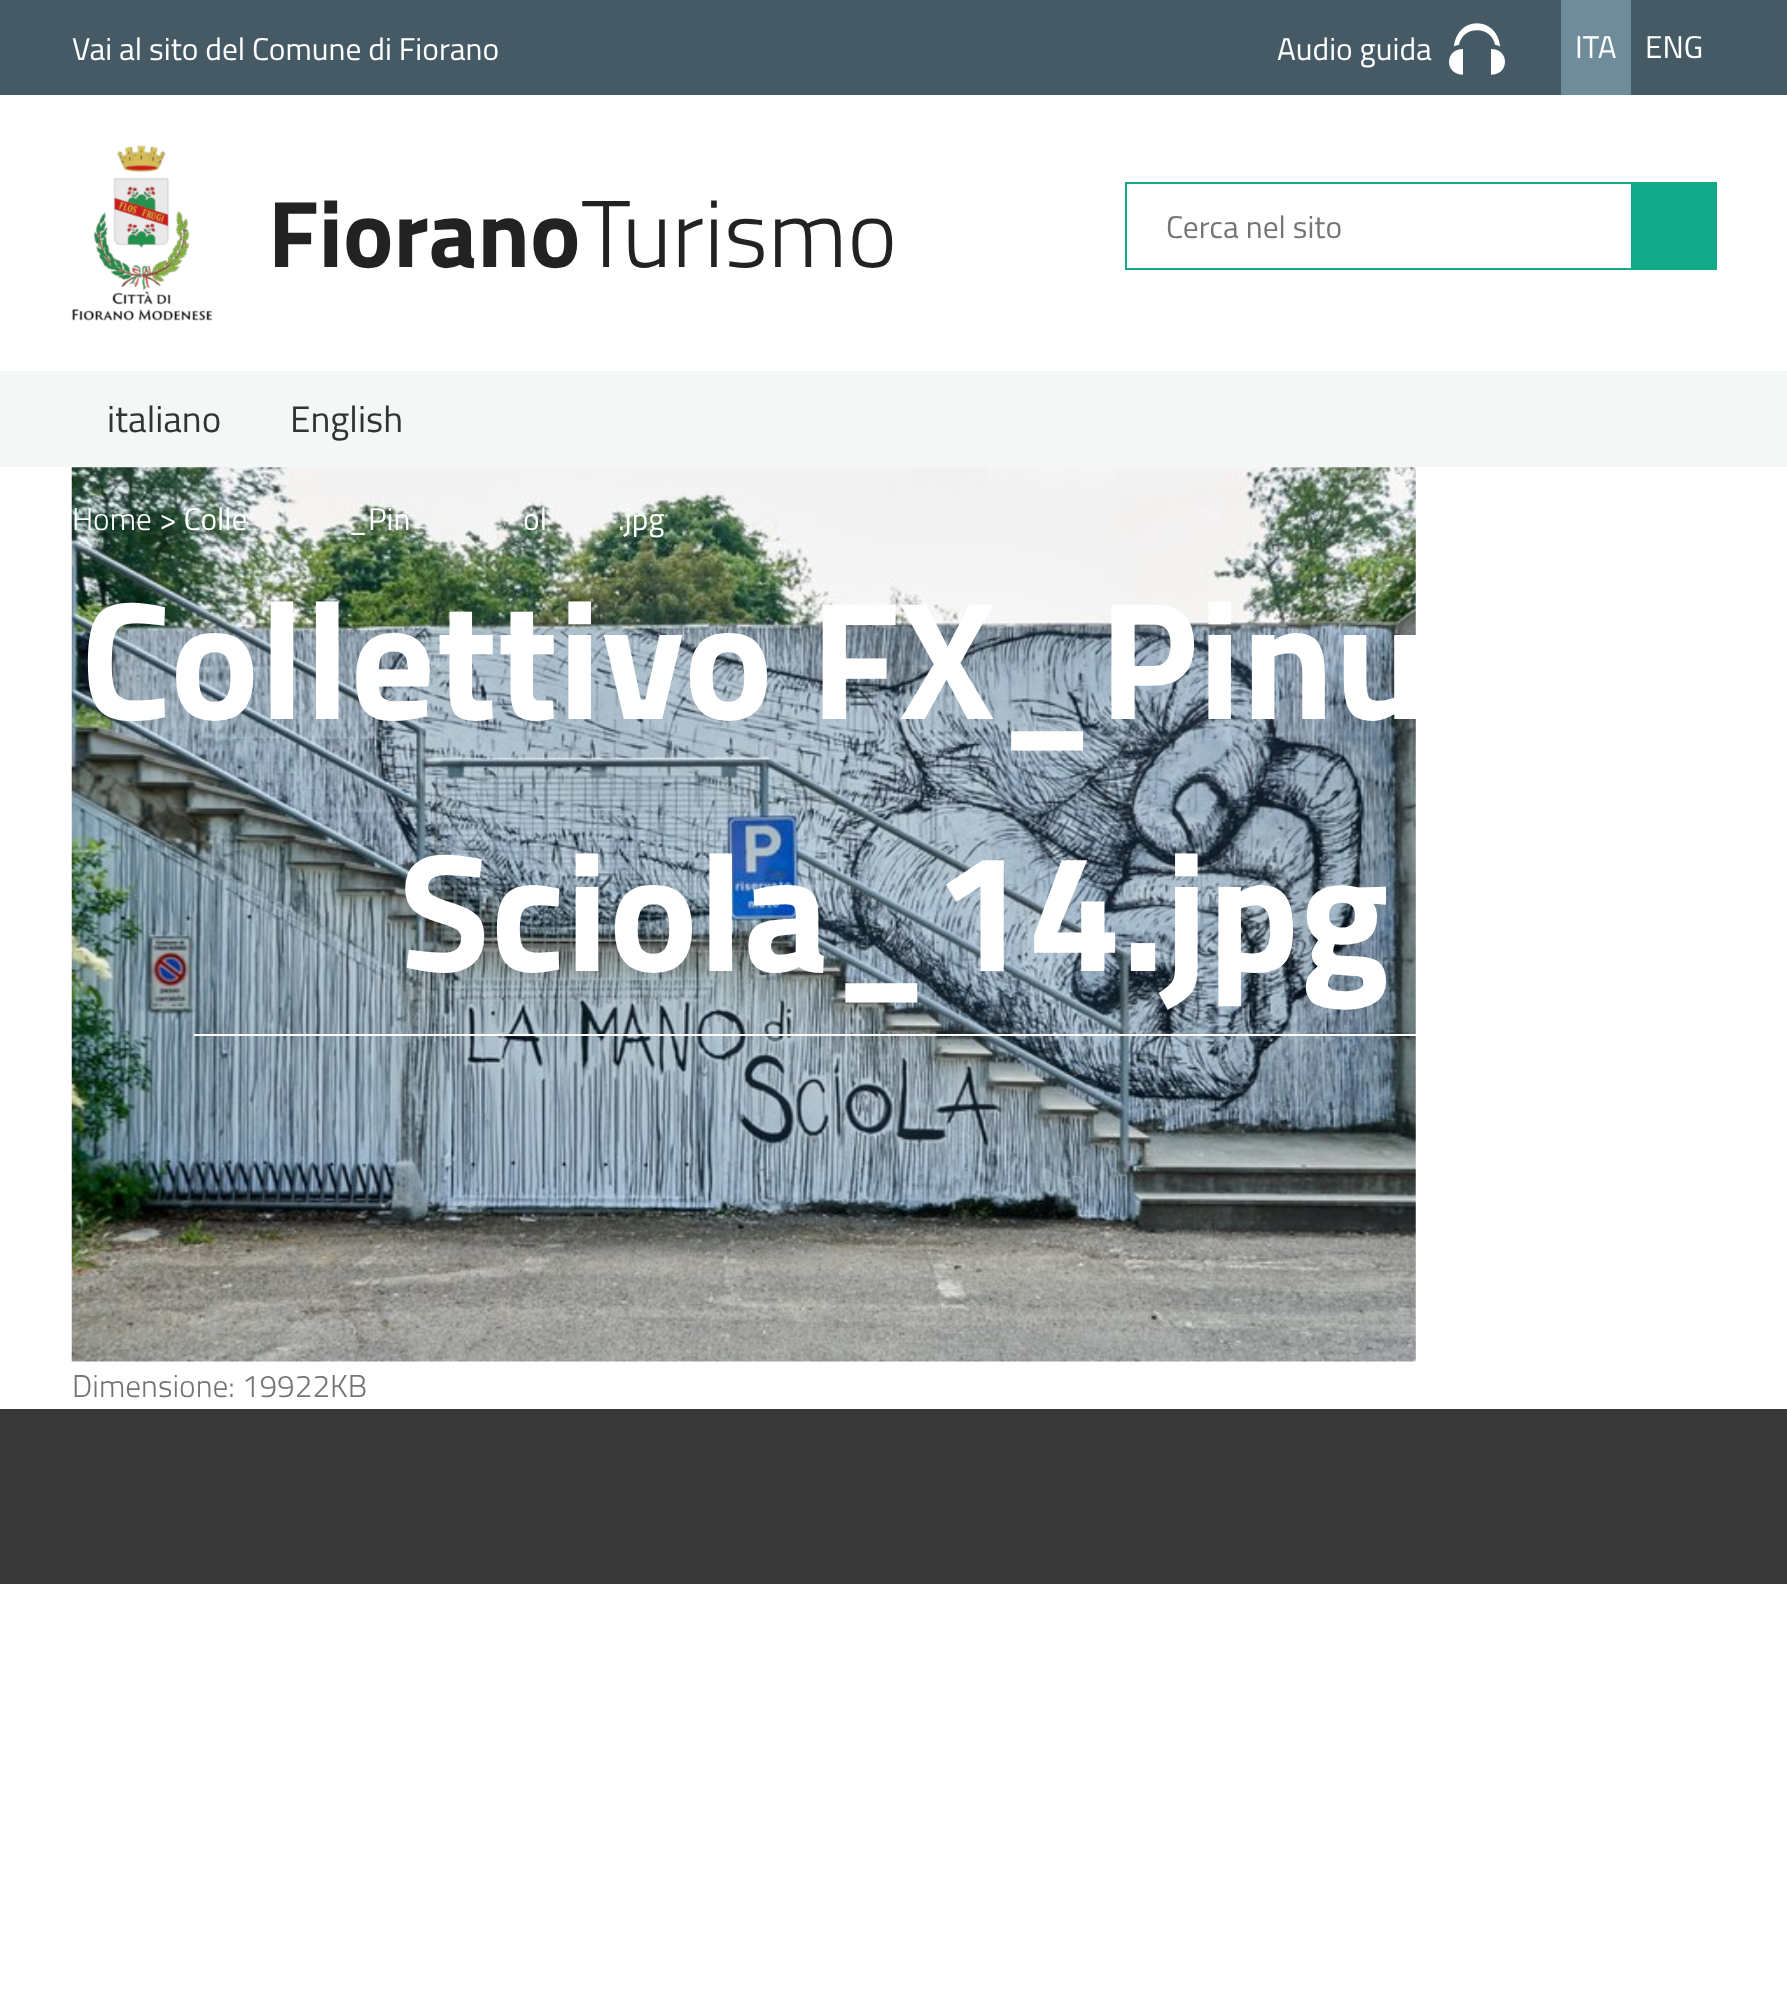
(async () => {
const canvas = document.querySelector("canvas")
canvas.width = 1787
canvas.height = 1990
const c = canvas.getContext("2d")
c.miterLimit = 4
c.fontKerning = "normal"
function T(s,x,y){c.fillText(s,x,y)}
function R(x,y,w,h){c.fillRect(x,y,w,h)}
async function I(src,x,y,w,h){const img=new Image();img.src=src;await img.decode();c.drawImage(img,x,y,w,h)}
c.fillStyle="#fff"
R(0,0,1787,1990)
c.fillStyle="#465a65"
R(0,0,1787,95)
c.font="31.5px Titillium Web"
c.fillStyle="#fff"
T("Vai al sito del Comune di Fiorano",72,60)
T("Audio guida",1277,60)
await I("1.png",1449,23,56,52)
c.fillStyle="#6f8c9a"
R(1561,0,70,95)
c.fillStyle="#fff"
T("ITA",1575,58)
T("ENG",1645,58)
await I("2.png",71,145,141,176)
c.font="bold 95px Titillium Web"
c.fillStyle="#222"
T("Fiorano",268,267)
c.font="300 95px Titillium Web"
T("Turismo",581,267)
c.strokeStyle="#1a8"
c.lineWidth=2
c.strokeRect(1126,183,506,86)
c.font="31.5px Titillium Web"
c.fillStyle="#757575"
T("Cerca nel sito",1166,238)
c.fillStyle="#1a8"
R(1633,182,84,88)
c.fillStyle="#f3f8f7"
R(0,371,1787,96)
c.font="37px Titillium Web"
c.fillStyle="#333"
T("italiano",107,432)
T("English",290,432)
await I("3.png",71,467,1345,895)
c.font="300 31.5px Titillium Web"
c.fillStyle="#fff"
T("Home",72,530)
c.font="31.5px Titillium Web"
T("> Colle",159,530)
T("_Pin",348,530)
T("ol",523,530)
T(".jpg",618,530)
c.font="bold 168px Titillium Web"
T("Collettivo FX_Pinu",80,719)
T("Sciola_14.jpg",399,971)
R(194,1034,1222,2)
c.font="300 31.5px Titillium Web"
c.fillStyle="#757575"
T("Dimensione: 19922KB",72,1397)
c.fillStyle="#383838"
R(0,1409,1787,175)
})()
